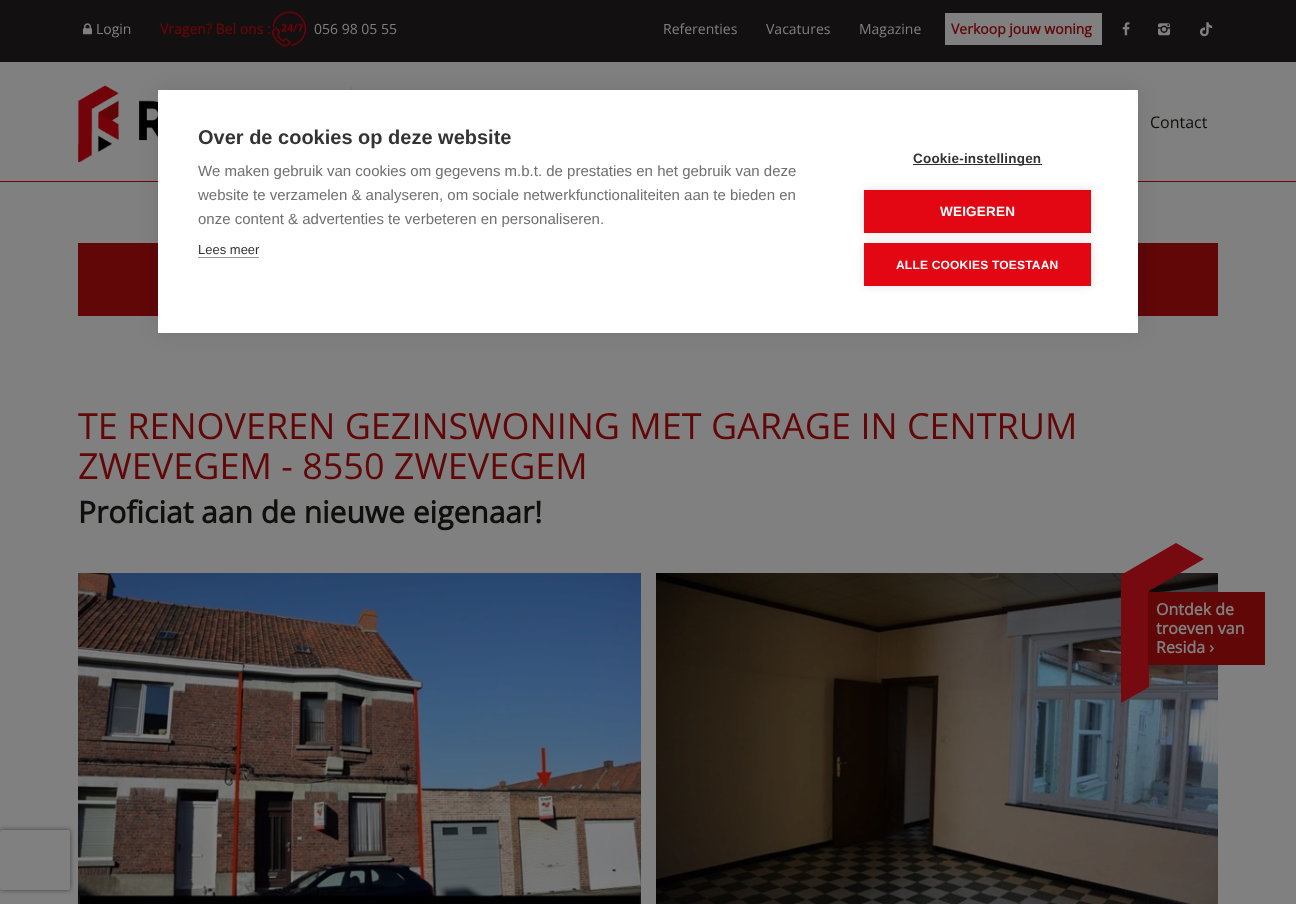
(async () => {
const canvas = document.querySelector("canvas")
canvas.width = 1296
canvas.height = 904
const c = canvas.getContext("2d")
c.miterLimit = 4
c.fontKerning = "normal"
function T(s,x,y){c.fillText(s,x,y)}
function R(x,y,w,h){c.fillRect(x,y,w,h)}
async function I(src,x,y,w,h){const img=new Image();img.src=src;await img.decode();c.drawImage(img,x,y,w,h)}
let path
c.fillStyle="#808080"
R(0,0,1296,904)
c.fillStyle="#121010"
R(0,0,1296,62)
await I("1.png",83,23,9,12)
c.font="14px Open Sans"
c.fillStyle="#808080"
T("Login",96,34)
c.font="bold 14px Open Sans"
c.fillStyle="#610708"
T("Vragen? Bel ons :",160,34)
await I("2.png",272,11,34,36)
c.font="14px Open Sans"
c.fillStyle="#808080"
T("056 98 05 55",314,34)
T("Referenties",663,34)
T("Vacatures",766,34)
T("Magazine",859,34)
R(945,13,157,32)
c.font="bold 14px Open Sans"
c.fillStyle="#610708"
T("Verkoop jouw woning",951,34)
await I("3.png",1122,22,8,14)
await I("4.png",1158,23,13,13)
await I("5.png",1199,22,14,15)
c.fillStyle="#72030a"
R(0,181,1296,1)
await I("6.png",78,85,274,78)
c.font="16px Open Sans"
c.fillStyle="#0f0f0e"
T("Contact",1150,128)
c.fillStyle="#610708"
R(78,243,1140,73)
c.fillStyle="#0000001a"
c.filter="blur(10px)"
c.beginPath()
c.rect(158,90,980,243)
c.fill()
c.filter="none"
c.fillStyle="#fff"
R(158,90,980,243)
c.font="bold 20px Liberation Sans"
c.fillStyle="#333"
T("Over de cookies op deze website",198,144)
c.font="15px Liberation Sans"
c.fillStyle="#707070"
T("We maken gebruik van cookies om gegevens m.b.t. de prestaties en het gebruik van deze",198,176)
T("website te verzamelen & analyseren, om sociale netwerkfunctionaliteiten aan te bieden en",198,200)
T("onze content & advertenties te verbeteren en personaliseren.",198,224)
c.font="13px Liberation Sans"
c.fillStyle="#333"
T("Lees meer",198,254)
c.fillStyle="#999"
R(198,257,61,1)
c.fillStyle="#333"
R(913,164,129,1)
c.letterSpacing="0.2px"
c.font="bold 13.5px Liberation Sans"
T("Cookie-instellingen",913,163)
c.fillStyle="#0000001f"
c.filter="blur(5px)"
c.beginPath()
c.rect(864,190,227,43)
c.fill()
c.filter="none"
c.fillStyle="#e30613"
R(864,190,227,43)
c.fillStyle="#fff"
T("WEIGEREN",940,216)
c.fillStyle="#0000001f"
c.filter="blur(5px)"
c.beginPath()
c.rect(864,243,227,43)
c.fill()
c.filter="none"
c.fillStyle="#e30613"
R(864,243,227,43)
c.font="bold 12px Liberation Sans"
c.fillStyle="#fff"
T("ALLE COOKIES TOESTAAN",896,269)
c.letterSpacing="0px"
c.font="36px Open Sans"
c.fillStyle="#610708"
T("TE RENOVEREN GEZINSWONING MET GARAGE IN CENTRUM",78,439)
T("ZWEVEGEM - 8550 ZWEVEGEM",78,479)
c.font="bold 30px Open Sans"
c.fillStyle="#0f0f0e"
T("Proficiat aan de nieuwe eigenaar!",78,523)
await I("7.png",78,573,563,331)
await I("8.png",656,573,562,331)
c.fillStyle="#770911"
path = new Path2D("M1149 687l-28 16v-128l55-32l28 16l-55 32z")
c.fill(path)
c.fillStyle="#610708"
R(1148,592,117,73)
c.font="bold 16px Open Sans"
c.fillStyle="#808080"
T("Ontdek de",1156,615)
T("troeven van",1156,634)
T("Resida ›",1156,653)
c.save()
path = new Path2D("M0 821h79v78h-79zm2 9h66c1 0 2 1 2 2v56c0 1-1 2-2 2h-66c-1 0-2-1-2-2v-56c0-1 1-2 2-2z")
c.clip(path,"evenodd")
c.fillStyle="#404040"
c.filter="blur(2.5px)"
c.beginPath()
c.roundRect(0,830,70,60,2)
c.fill()
c.filter="none"
c.restore()
})()
